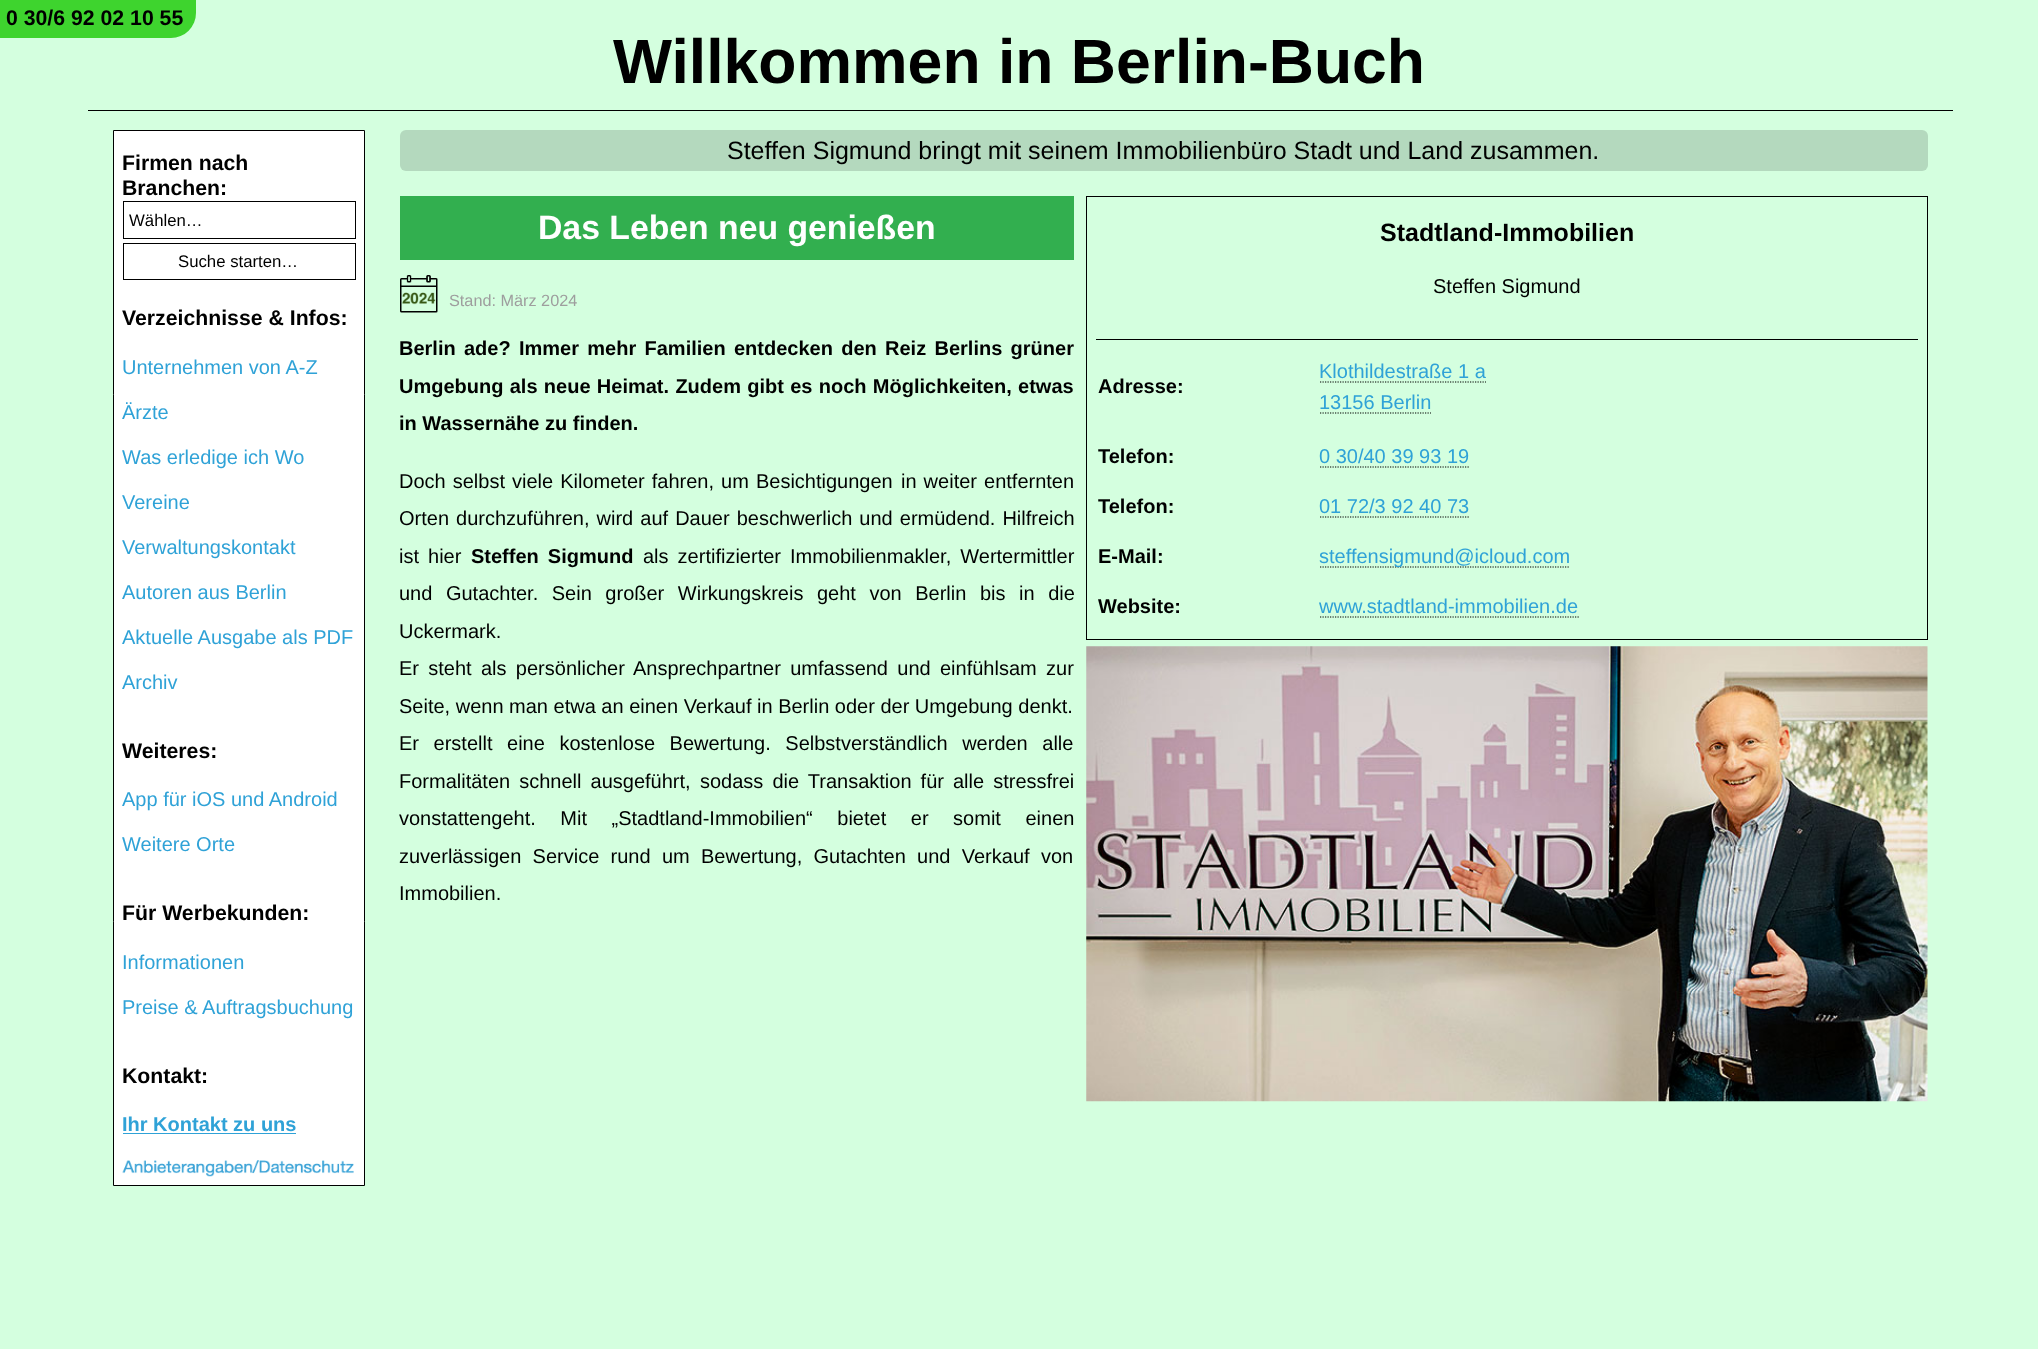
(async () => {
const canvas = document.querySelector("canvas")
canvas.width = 2038
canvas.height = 1349
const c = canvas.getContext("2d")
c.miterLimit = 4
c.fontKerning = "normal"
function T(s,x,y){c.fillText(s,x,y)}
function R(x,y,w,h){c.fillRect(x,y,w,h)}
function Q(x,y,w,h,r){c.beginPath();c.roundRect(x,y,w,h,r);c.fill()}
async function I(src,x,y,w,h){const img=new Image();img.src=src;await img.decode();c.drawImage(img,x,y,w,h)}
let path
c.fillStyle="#d4ffdf"
R(0,0,2038,1349)
c.fillStyle="#3ed42e"
c.beginPath()
c.roundRect(0,0,196,38,[0,0,25,0])
c.fill()
c.font="bold 21.25px Liberation Sans"
c.fillStyle="#000"
T("0 30/6 92 02 10 55",6,25)
R(88,110,1865,1)
c.font="bold 62.5px Liberation Sans"
T("Willkommen in Berlin-Buch",613,83)
c.fillStyle="#fff"
c.beginPath()
c.rect(113.5,130.5,251,1055)
c.fill()
c.strokeStyle="#000"
c.stroke()
c.font="bold 21.25px Liberation Sans"
c.fillStyle="#000"
T("Firmen nach",122,170)
T("Branchen:",122,195)
c.strokeRect(123.5,201.5,232,37)
c.font="16.75px Liberation Sans"
T("Wählen…",129,226)
c.strokeRect(123.5,243.5,232,36)
T("Suche starten…",178,267)
c.font="bold 21.25px Liberation Sans"
T("Verzeichnisse & Infos:",122,325)
c.font="20px Liberation Sans"
c.fillStyle="#2fa2d7"
T("Unternehmen von A-Z",122,374)
T("Ärzte",122,419)
T("Was erledige ich Wo",122,464)
T("Vereine",122,509)
T("Verwaltungskontakt",122,554)
T("Autoren aus Berlin",122,599)
T("Aktuelle Ausgabe als PDF",122,644)
T("Archiv",122,689)
c.font="bold 21.25px Liberation Sans"
c.fillStyle="#000"
T("Weiteres:",122,758)
c.font="20px Liberation Sans"
c.fillStyle="#2fa2d7"
T("App für iOS und Android",122,806)
T("Weitere Orte",122,851)
c.font="bold 21.25px Liberation Sans"
c.fillStyle="#000"
T("Für Werbekunden:",122,920)
c.font="20px Liberation Sans"
c.fillStyle="#2fa2d7"
T("Informationen",122,969)
T("Preise & Auftragsbuchung",122,1014)
c.font="bold 21.25px Liberation Sans"
c.fillStyle="#000"
T("Kontakt:",122,1083)
c.font="bold 20px Liberation Sans"
c.fillStyle="#2fa2d7"
T("Ihr Kontakt zu uns",122,1131)
R(123,1133,173,1)
await I("1.png",122,1160,232,17)
c.fillStyle="#b4d9be"
Q(400,130,1528,41,6)
c.font="25px Liberation Sans"
c.fillStyle="#000"
T("Steffen Sigmund bringt mit seinem Immobilienbüro Stadt und Land zusammen.",727,159)
await I("2.png",400,275,38,38)
c.font="16.25px Liberation Sans"
c.fillStyle="#9e9e9e"
T("Stand: März 2024",449,306)
c.fillStyle="#32af4f"
R(400,196,674,64)
c.font="bold 33.75px Liberation Sans"
c.fillStyle="#fff"
T("Das Leben neu genießen",538,239)
c.strokeRect(1086.5,196.5,841,443)
c.font="bold 25px Liberation Sans"
c.fillStyle="#000"
T("Stadtland-Immobilien",1380,241)
c.font="20px Liberation Sans"
T("Steffen Sigmund",1433,293)
R(1096,339,822,1)
c.font="bold 20px Liberation Sans"
T("Adresse:",1098,393)
c.font="20px Liberation Sans"
c.fillStyle="#2fa2d7"
T("Klothildestraße 1 a",1319,378)
path = new Path2D("M1320 382h166")
c.lineWidth=1.2
c.setLineDash([1.25,1.25])
c.stroke(path)
T("13156 Berlin",1319,409)
path = new Path2D("M1320 413h111")
c.stroke(path)
c.font="bold 20px Liberation Sans"
c.fillStyle="#000"
T("Telefon:",1098,463)
c.font="20px Liberation Sans"
c.fillStyle="#2fa2d7"
T("0 30/40 39 93 19",1319,463)
path = new Path2D("M1320 467h150")
c.stroke(path)
c.font="bold 20px Liberation Sans"
c.fillStyle="#000"
T("Telefon:",1098,513)
c.font="20px Liberation Sans"
c.fillStyle="#2fa2d7"
T("01 72/3 92 40 73",1319,513)
path = new Path2D("M1320 517h150")
c.stroke(path)
c.font="bold 20px Liberation Sans"
c.fillStyle="#000"
T("E-Mail:",1098,563)
path = new Path2D("M1320 567h250")
c.stroke(path)
c.font="20px Liberation Sans"
c.fillStyle="#2fa2d7"
T("steffensigmund@icloud.com",1319,563)
c.font="bold 20px Liberation Sans"
c.fillStyle="#000"
T("Website:",1098,613)
c.font="20px Liberation Sans"
c.fillStyle="#2fa2d7"
T("www.stadtland-immobilien.de",1319,613)
path = new Path2D("M1320 617h259")
c.stroke(path)
await I("3.png",1086,646,842,456)
c.wordSpacing="2.75px"
c.font="bold 20px Liberation Sans"
c.fillStyle="#000"
T("Berlin ade? Immer mehr Familien entdecken den Reiz Berlins grüner",399,355)
c.wordSpacing="0.75px"
T("Umgebung als neue Heimat. Zudem gibt es noch Möglichkeiten, etwas",399,393)
c.wordSpacing="0px"
T("in Wassernähe zu finden.",399,430)
c.wordSpacing="1.5px"
c.font="20px Liberation Sans"
T("Doch selbst viele Kilometer fahren, um Besichtigungen",399,488)
T("in weiter entfernten",901,488)
T("Orten durchzuführen, wird auf Dauer beschwerlich und ermüdend. Hilfreich",399,525)
c.wordSpacing="3.5px"
T("ist hier",399,563)
c.font="bold 20px Liberation Sans"
T("Steffen Sigmund",471,563)
c.font="20px Liberation Sans"
T("als zertifizierter Immobilienmakler, Wertermittler",643,563)
c.wordSpacing="8px"
T("und Gutachter. Sein großer Wirkungskreis geht von Berlin bis in die",399,600)
c.wordSpacing="0px"
T("Uckermark.",399,638)
c.wordSpacing="3.75px"
T("Er steht als persönlicher Ansprechpartner umfassend und einfühlsam zur",399,675)
c.wordSpacing="0px"
T("Seite, wenn man etwa an einen Verkauf in Berlin oder der Umgebung denkt.",399,713)
c.wordSpacing="9px"
T("Er erstellt eine kostenlose Bewertung. Selbstverständlich werden alle",399,750)
c.wordSpacing="3.5px"
T("Formalitäten schnell ausgeführt,",399,788)
T("sodass die Transaktion für",700,788)
T("alle stressfrei",953,788)
c.wordSpacing="19px"
T("vonstattengeht. Mit „Stadtland-Immobilien“ bietet er somit einen",399,825)
c.wordSpacing="5.75px"
T("zuverlässigen Service rund um Bewertung, Gutachten und Verkauf von",399,863)
c.wordSpacing="0px"
T("Immobilien.",399,900)
})()
